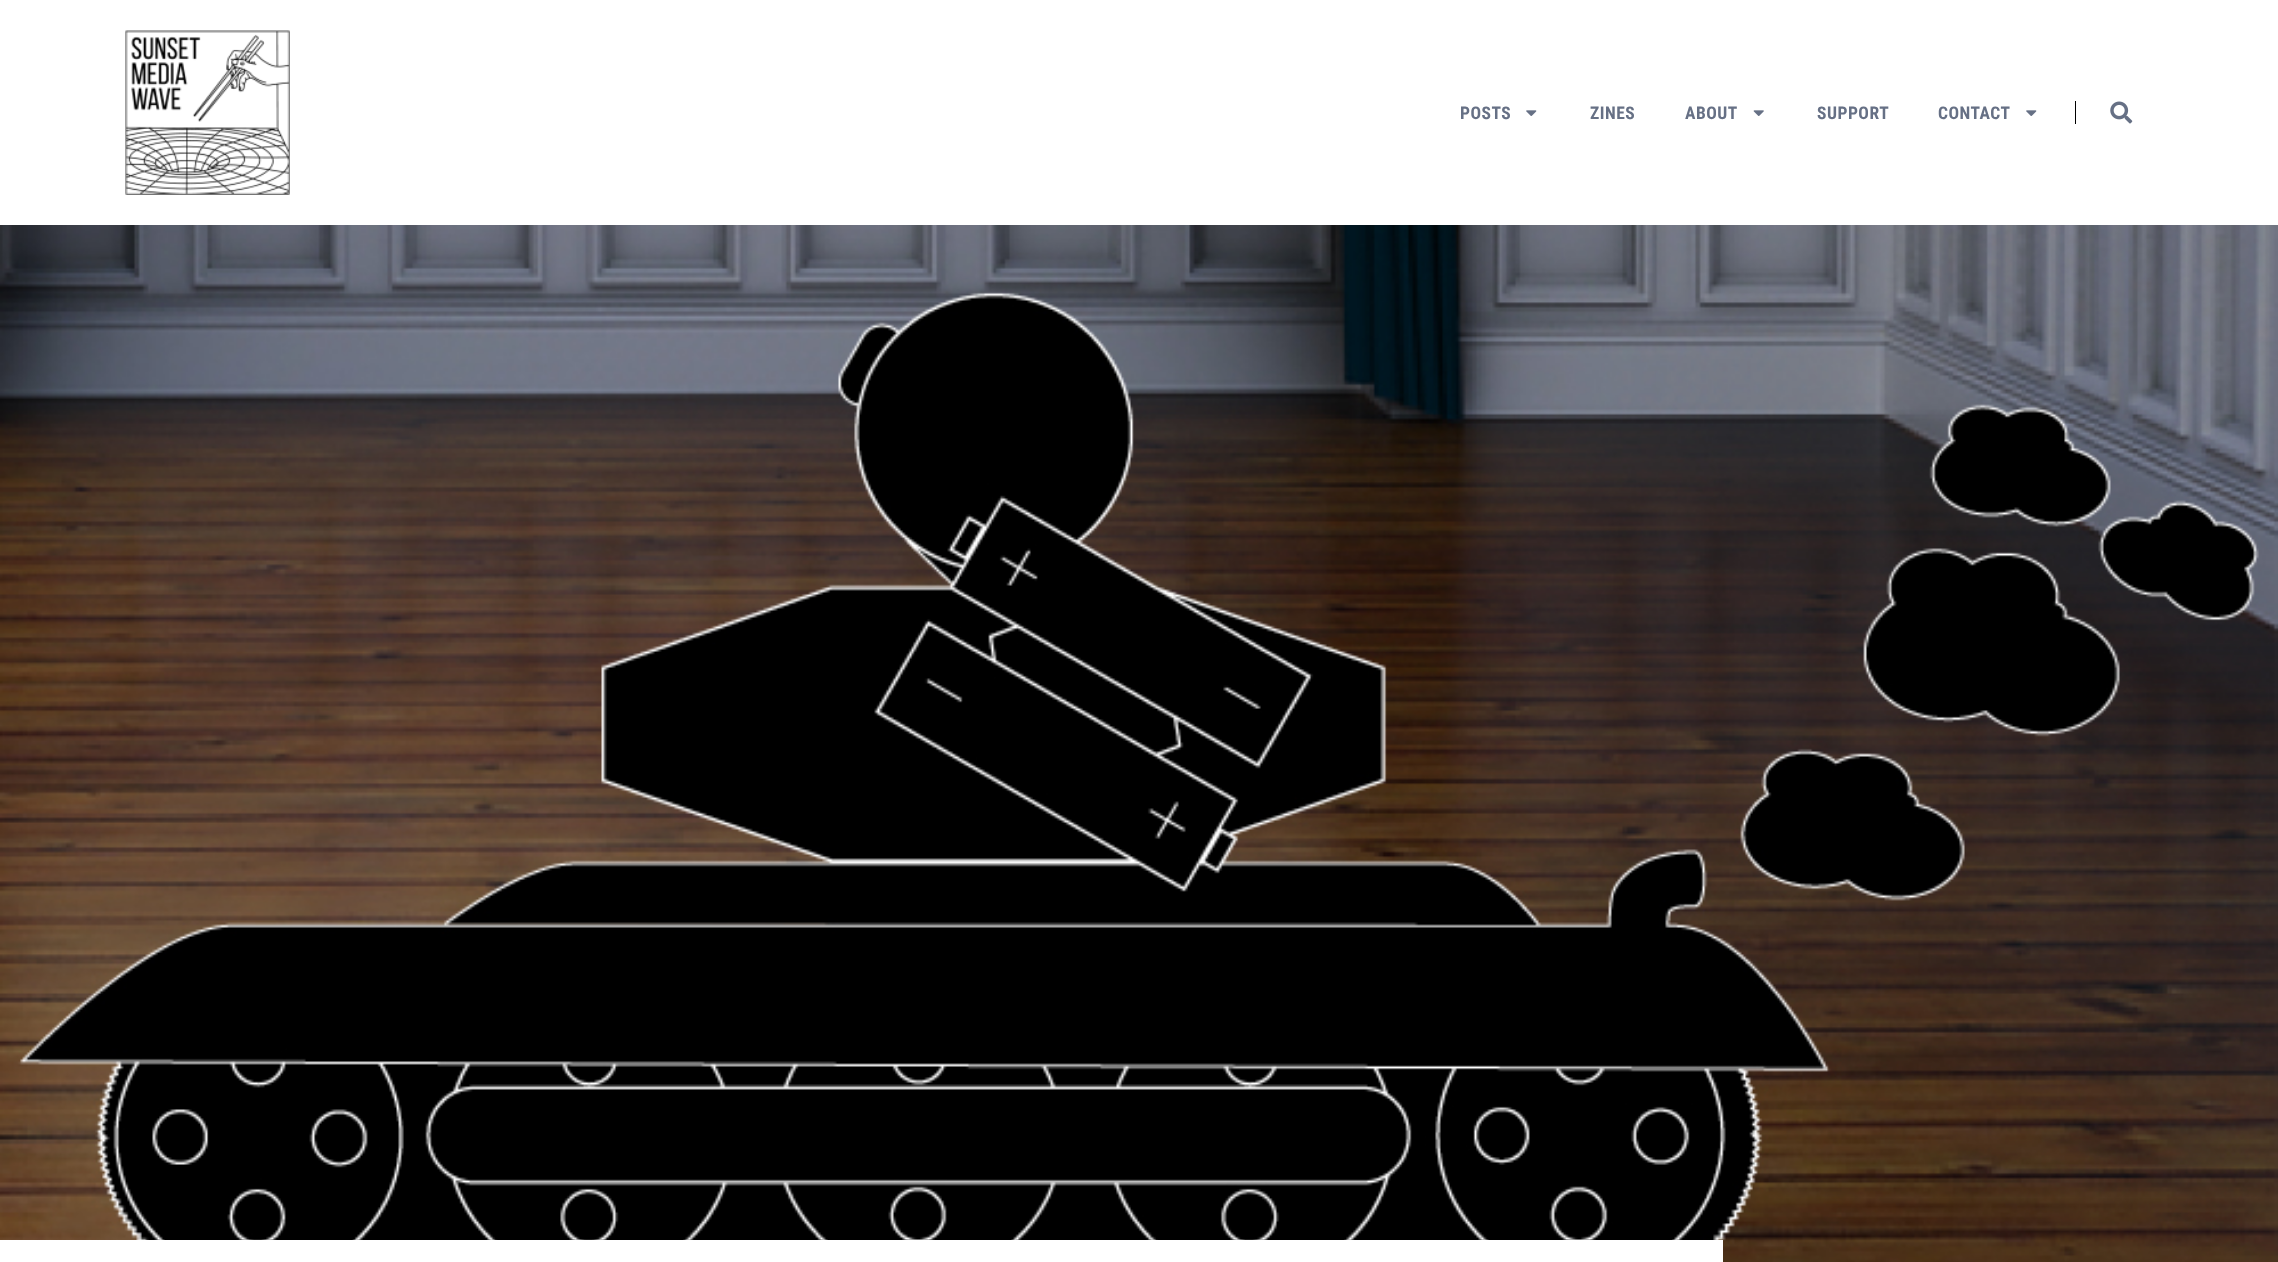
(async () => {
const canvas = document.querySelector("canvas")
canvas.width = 2278
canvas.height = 1262
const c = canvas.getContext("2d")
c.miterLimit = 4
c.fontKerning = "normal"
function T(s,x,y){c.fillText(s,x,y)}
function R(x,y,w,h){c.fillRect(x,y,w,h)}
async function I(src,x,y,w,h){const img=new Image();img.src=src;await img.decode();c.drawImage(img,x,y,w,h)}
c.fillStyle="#fff"
R(0,0,2278,1262)
await I("1.png",125,30,165,165)
c.fillStyle="#000"
R(2075,101,1,23)
c.letterSpacing="0.5px"
c.font="bold 17.5px Roboto Condensed"
c.fillStyle="#667085"
T("POSTS",1460,119)
await I("2.png",1526,110,11,6)
T("ZINES",1590,119)
T("ABOUT",1685,119)
await I("3.png",1753,110,11,6)
T("SUPPORT",1817,119)
T("CONTACT",1938,119)
await I("2.png",2026,110,11,6)
await I("4.png",2110,101,23,23)
await I("5.png",0,225,2278,1037)
c.fillStyle="#fff"
R(0,1240,1723,22)
})()
